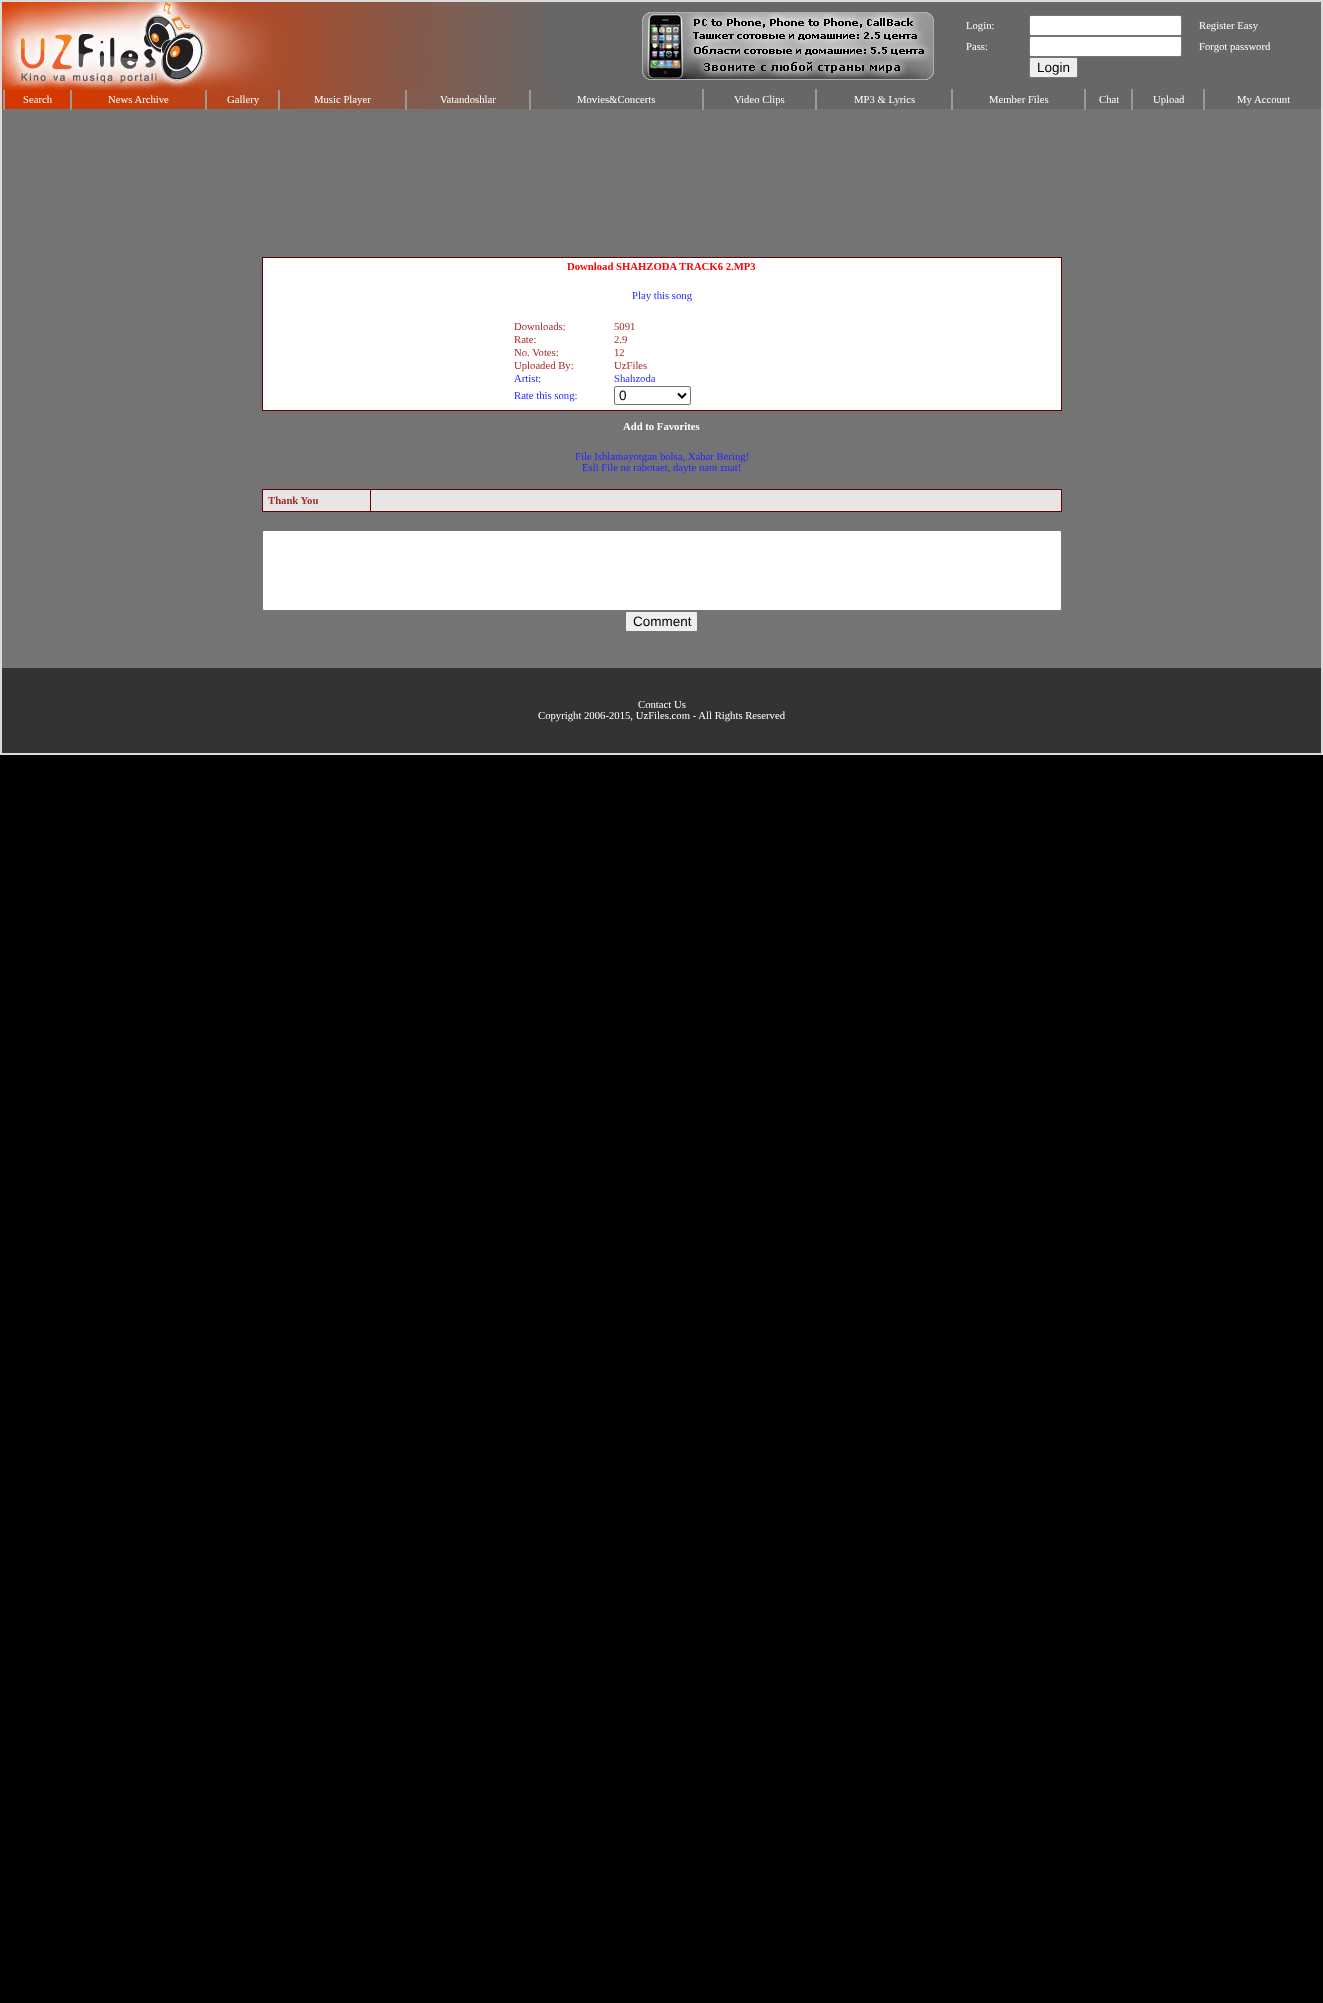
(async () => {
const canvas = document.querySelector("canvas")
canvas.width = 1323
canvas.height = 2003
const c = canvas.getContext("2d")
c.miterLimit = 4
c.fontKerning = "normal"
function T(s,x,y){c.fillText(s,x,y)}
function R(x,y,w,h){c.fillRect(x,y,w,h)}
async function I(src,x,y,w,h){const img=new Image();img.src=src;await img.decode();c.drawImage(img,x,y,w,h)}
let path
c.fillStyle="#000"
R(0,0,1323,2003)
c.fillStyle="#757474"
R(2,109,1319,559)
c.strokeStyle="#dbdbdb"
c.lineWidth=2
c.strokeRect(1,1,1321,753)
c.fillStyle="#676767"
R(546,2,775,88)
await I("3.png",2,90,1319,19)
c.fillStyle="#999"
R(3,89,2,21)
R(70,89,2,21)
R(205,89,2,21)
R(278,89,2,21)
R(405,89,2,21)
R(529,89,2,21)
await I("1.png",2,2,544,88)
await I("2.png",642,12,292,68)
c.font="10.7px Liberation Serif"
c.fillStyle="#fff"
T("Login:",966,29)
c.beginPath()
c.roundRect(1029.5,15.5,152,20,1.5)
c.fill()
c.strokeStyle="#767676"
c.lineWidth=1
c.stroke()
T("Register Easy",1199,29)
T("Pass:",966,50)
c.beginPath()
c.roundRect(1029.5,36.5,152,20,1.5)
c.fill()
c.stroke()
T("Forgot password",1199,50)
c.fillStyle="#efefef"
c.beginPath()
c.roundRect(1029.5,57.5,48,20,1.5)
c.fill()
c.stroke()
c.font="13.5px Liberation Sans"
c.fillStyle="#000"
T("Login",1037,72)
c.font="10.7px Liberation Serif"
c.fillStyle="#fff"
T("Search",23,103)
T("News Archive",108,103)
T("Gallery",227,103)
T("Music Player",314,103)
T("Vatandoshlar",440,103)
T("Movies&Concerts",577,103)
c.fillStyle="#999"
R(702,89,2,21)
c.fillStyle="#fff"
T("Video Clips",734,103)
c.fillStyle="#999"
R(815,89,2,21)
c.fillStyle="#fff"
T("MP3 & Lyrics",854,103)
c.fillStyle="#999"
R(951,89,2,21)
c.fillStyle="#fff"
T("Member Files",989,103)
c.fillStyle="#999"
R(1084,89,2,21)
c.fillStyle="#fff"
T("Chat",1099,103)
c.fillStyle="#999"
R(1131,89,2,21)
c.fillStyle="#fff"
T("Upload",1153,103)
c.fillStyle="#999"
R(1203,89,2,21)
c.fillStyle="#fff"
T("My Account",1237,103)
R(263,258,798,152)
c.fillStyle="#600"
R(262,257,800,1)
R(1061,257,1,154)
R(262,410,800,1)
R(262,257,1,154)
c.font="bold 10.7px Liberation Serif"
c.fillStyle="#f00"
T("Download SHAHZODA TRACK6 2.MP3",567,270)
c.font="10.7px Liberation Serif"
c.fillStyle="#2424ff"
T("Play this song",632,299)
c.fillStyle="#a52a2a"
T("Downloads:",514,330)
T("5091",614,330)
T("Rate:",514,343)
T("2.9",614,343)
T("No. Votes:",514,356)
T("12",614,356)
T("Uploaded By:",514,369)
T("UzFiles",614,369)
c.fillStyle="#2424ff"
T("Artist:",514,382)
T("Shahzoda",614,382)
T("Rate this song:",514,399)
c.beginPath()
c.roundRect(614.5,386.5,76,18,1.5)
c.stroke()
path = new Path2D("M678 393.5l4 4l4-4")
c.strokeStyle="#000"
c.lineWidth=2
c.stroke(path)
c.font="13.5px Liberation Sans"
c.fillStyle="#000"
T("0",619,400)
c.font="bold 10.7px Liberation Serif"
c.fillStyle="#fff"
T("Add to Favorites",623,430)
c.font="10.7px Liberation Serif"
c.fillStyle="#2424ff"
T("File Ishlamayotgan bolsa, Xabar Bering!",575,460)
T("Esli File ne rabotaet, dayte nam znat!",582,471)
c.fillStyle="#e6e6e6"
R(263,490,798,21)
c.fillStyle="#600"
R(370,489,692,1)
R(1061,489,1,23)
R(370,511,692,1)
R(370,489,1,23)
R(262,489,109,1)
R(262,511,109,1)
R(262,489,1,23)
c.font="bold 10.7px Liberation Serif"
c.fillStyle="#a52a2a"
T("Thank You",268,504)
c.fillStyle="#fff"
c.beginPath()
c.roundRect(262.5,530.5,799,80,1.5)
c.fill()
c.strokeStyle="#767676"
c.lineWidth=1
c.stroke()
c.fillStyle="#efefef"
c.beginPath()
c.roundRect(625.5,611.5,72,20,1.5)
c.fill()
c.stroke()
c.font="13.5px Liberation Sans"
c.fillStyle="#000"
T("Comment",633,626)
c.fillStyle="#333"
R(2,668,1319,85)
c.font="10.7px Liberation Serif"
c.fillStyle="#fff"
T("Contact Us",638,708)
T("Copyright 2006-2015, UzFiles.com - All Rights Reserved",538,719)
})()
